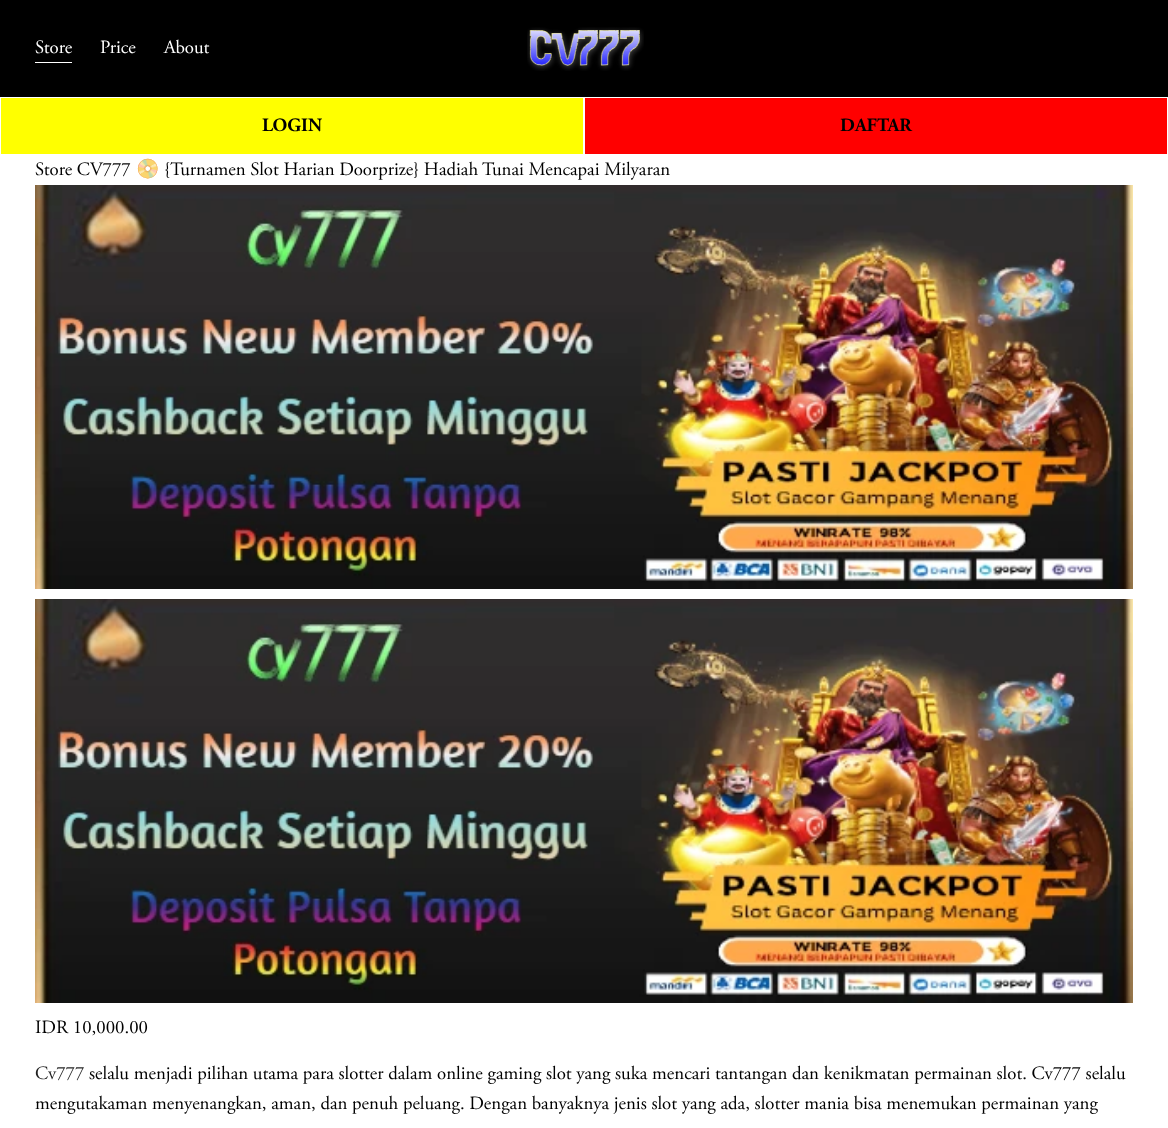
(async () => {
const canvas = document.querySelector("canvas")
canvas.width = 1168
canvas.height = 1128
const c = canvas.getContext("2d")
c.miterLimit = 4
c.fontKerning = "normal"
function T(s,x,y){c.fillText(s,x,y)}
function R(x,y,w,h){c.fillRect(x,y,w,h)}
async function I(src,x,y,w,h){const img=new Image();img.src=src;await img.decode();c.drawImage(img,x,y,w,h)}
c.fillStyle="#fff"
R(0,0,1168,1128)
c.fillStyle="#000"
R(0,0,1168,97)
c.fillStyle="#fff"
R(35,62,37,1)
c.font="18.8px Adobe Garamond"
T("Store",35,53)
T("Price",100,53)
T("About",164,53)
await I("1.png",527,27,117,44)
c.fillStyle="#ff0"
R(1,98,582,56)
c.font="bold 18.8px Adobe Garamond"
c.fillStyle="#000"
T("LOGIN",262,131)
c.fillStyle="#f00"
R(585,98,582,56)
c.fillStyle="#000"
T("DAFTAR",840,131)
c.font="18.8px Adobe Garamond"
T("Store CV777",35,175)
c.font="18.8px Noto Color Emoji"
T("📀",136,175)
c.font="18.8px Adobe Garamond"
T("{Turnamen Slot Harian Doorprize} Hadiah Tunai Mencapai Milyaran",164,175)
await I("2.png",35,185,1098,404)
await I("2.png",35,599,1098,404)
T("IDR 10,000.00",35,1033)
c.fillStyle="#1f1f1f"
T("Cv777",35,1079)
c.fillStyle="#000"
T("selalu menjadi pilihan utama para slotter dalam online gaming slot yang suka mencari tantangan dan kenikmatan permainan slot. Cv777 selalu",89,1079)
T("mengutakaman menyenangkan, aman, dan penuh peluang. Dengan banyaknya jenis slot yang ada, slotter mania bisa menemukan permainan yang",35,1109)
})()
